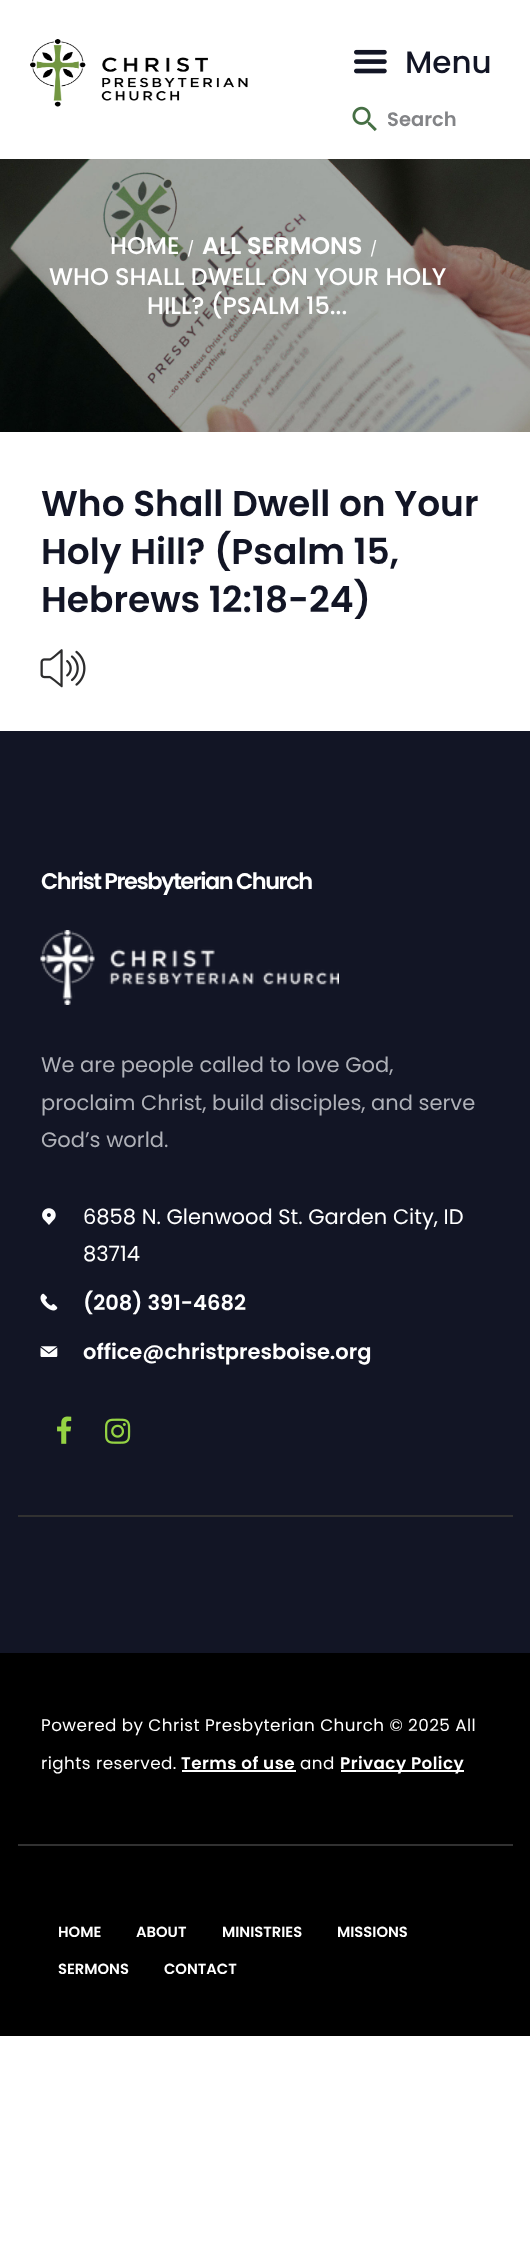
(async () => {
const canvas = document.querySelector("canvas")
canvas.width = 530
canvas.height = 2246
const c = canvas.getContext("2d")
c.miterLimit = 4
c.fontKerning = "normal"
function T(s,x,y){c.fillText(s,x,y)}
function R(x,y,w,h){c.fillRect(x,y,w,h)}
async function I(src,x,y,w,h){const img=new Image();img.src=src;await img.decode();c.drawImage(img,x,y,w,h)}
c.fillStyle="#fff"
R(0,0,530,2246)
await I("1.png",0,159,530,273)
await I("2.png",30,39,218,68)
await I("3.png",354,49,33,25)
c.font="500 31px Poppins"
c.fillStyle="#121525"
T("Menu",405,73)
await I("4.png",352,106,25,26)
c.font="600 19.5px Poppins"
c.fillStyle="#838487"
T("Search",387,126)
c.font="500 24px Poppins"
c.fillStyle="#fff"
T("HOME",110,254)
c.letterSpacing="0.45px"
c.font="15px Poppins"
T("/",187,254)
c.letterSpacing="0px"
c.font="600 24px Poppins"
T("ALL SERMONS",202,254)
c.letterSpacing="0.45px"
c.font="15px Poppins"
T("/",370,254)
c.letterSpacing="0px"
c.font="500 24px Poppins"
T("WHO SHALL DWELL ON YOUR HOLY",49,285)
T("HILL? (PSALM 15...",147,314)
c.font="600 36px Poppins"
c.fillStyle="#121525"
T("Who Shall Dwell on Your",41,516)
T("Holy Hill? (Psalm 15,",41,564)
T("Hebrews 12:18-24)",41,612)
await I("5.png",40,649,46,39)
R(0,731,530,922)
c.letterSpacing="-1.5px"
c.font="600 22.5px Poppins"
c.fillStyle="#fff"
T("Christ Presbyterian Church",41,889)
await I("6.png",40,930,299,75)
c.letterSpacing="0px"
c.font="21px Poppins"
c.fillStyle="#afb1b8"
T("We are people called to love God,",41,1072)
T("proclaim Christ, build disciples, and serve",41,1110)
T("God’s world.",41,1147)
await I("7.png",42,1208,14,17)
c.fillStyle="#fff"
T("6858 N. Glenwood St. Garden City, ID",83,1224)
T("83714",83,1261)
await I("8.png",40,1293,18,18)
c.font="600 21px Poppins"
T("(208) 391-4682",83,1310)
await I("9.png",40,1346,18,11)
T("office@christpresboise.org",83,1359)
await I("10.png",57,1416,15,28)
await I("11.png",105,1418,26,26)
c.fillStyle="#313131"
R(18,1515,495,2)
c.fillStyle="#000"
R(0,1653,530,383)
c.letterSpacing="0.45px"
c.font="16.8px Poppins"
c.fillStyle="#fff"
T("Powered by Christ Presbyterian Church © 2025 All",41,1731)
T("rights reserved.",41,1769)
c.font="600 16.8px Poppins"
T("Terms of use",181,1769)
R(182,1770,114,2)
c.font="16.8px Poppins"
T("and",300,1769)
R(341,1770,123,2)
c.font="600 16.8px Poppins"
T("Privacy Policy",340,1769)
c.fillStyle="#313131"
R(18,1844,495,2)
c.letterSpacing="0px"
c.font="600 14.75px Poppins"
c.fillStyle="#fff"
T("HOME",58,1937)
T("ABOUT",136,1937)
T("MINISTRIES",222,1937)
T("MISSIONS",337,1937)
T("SERMONS",58,1974)
T("CONTACT",164,1974)
})()
